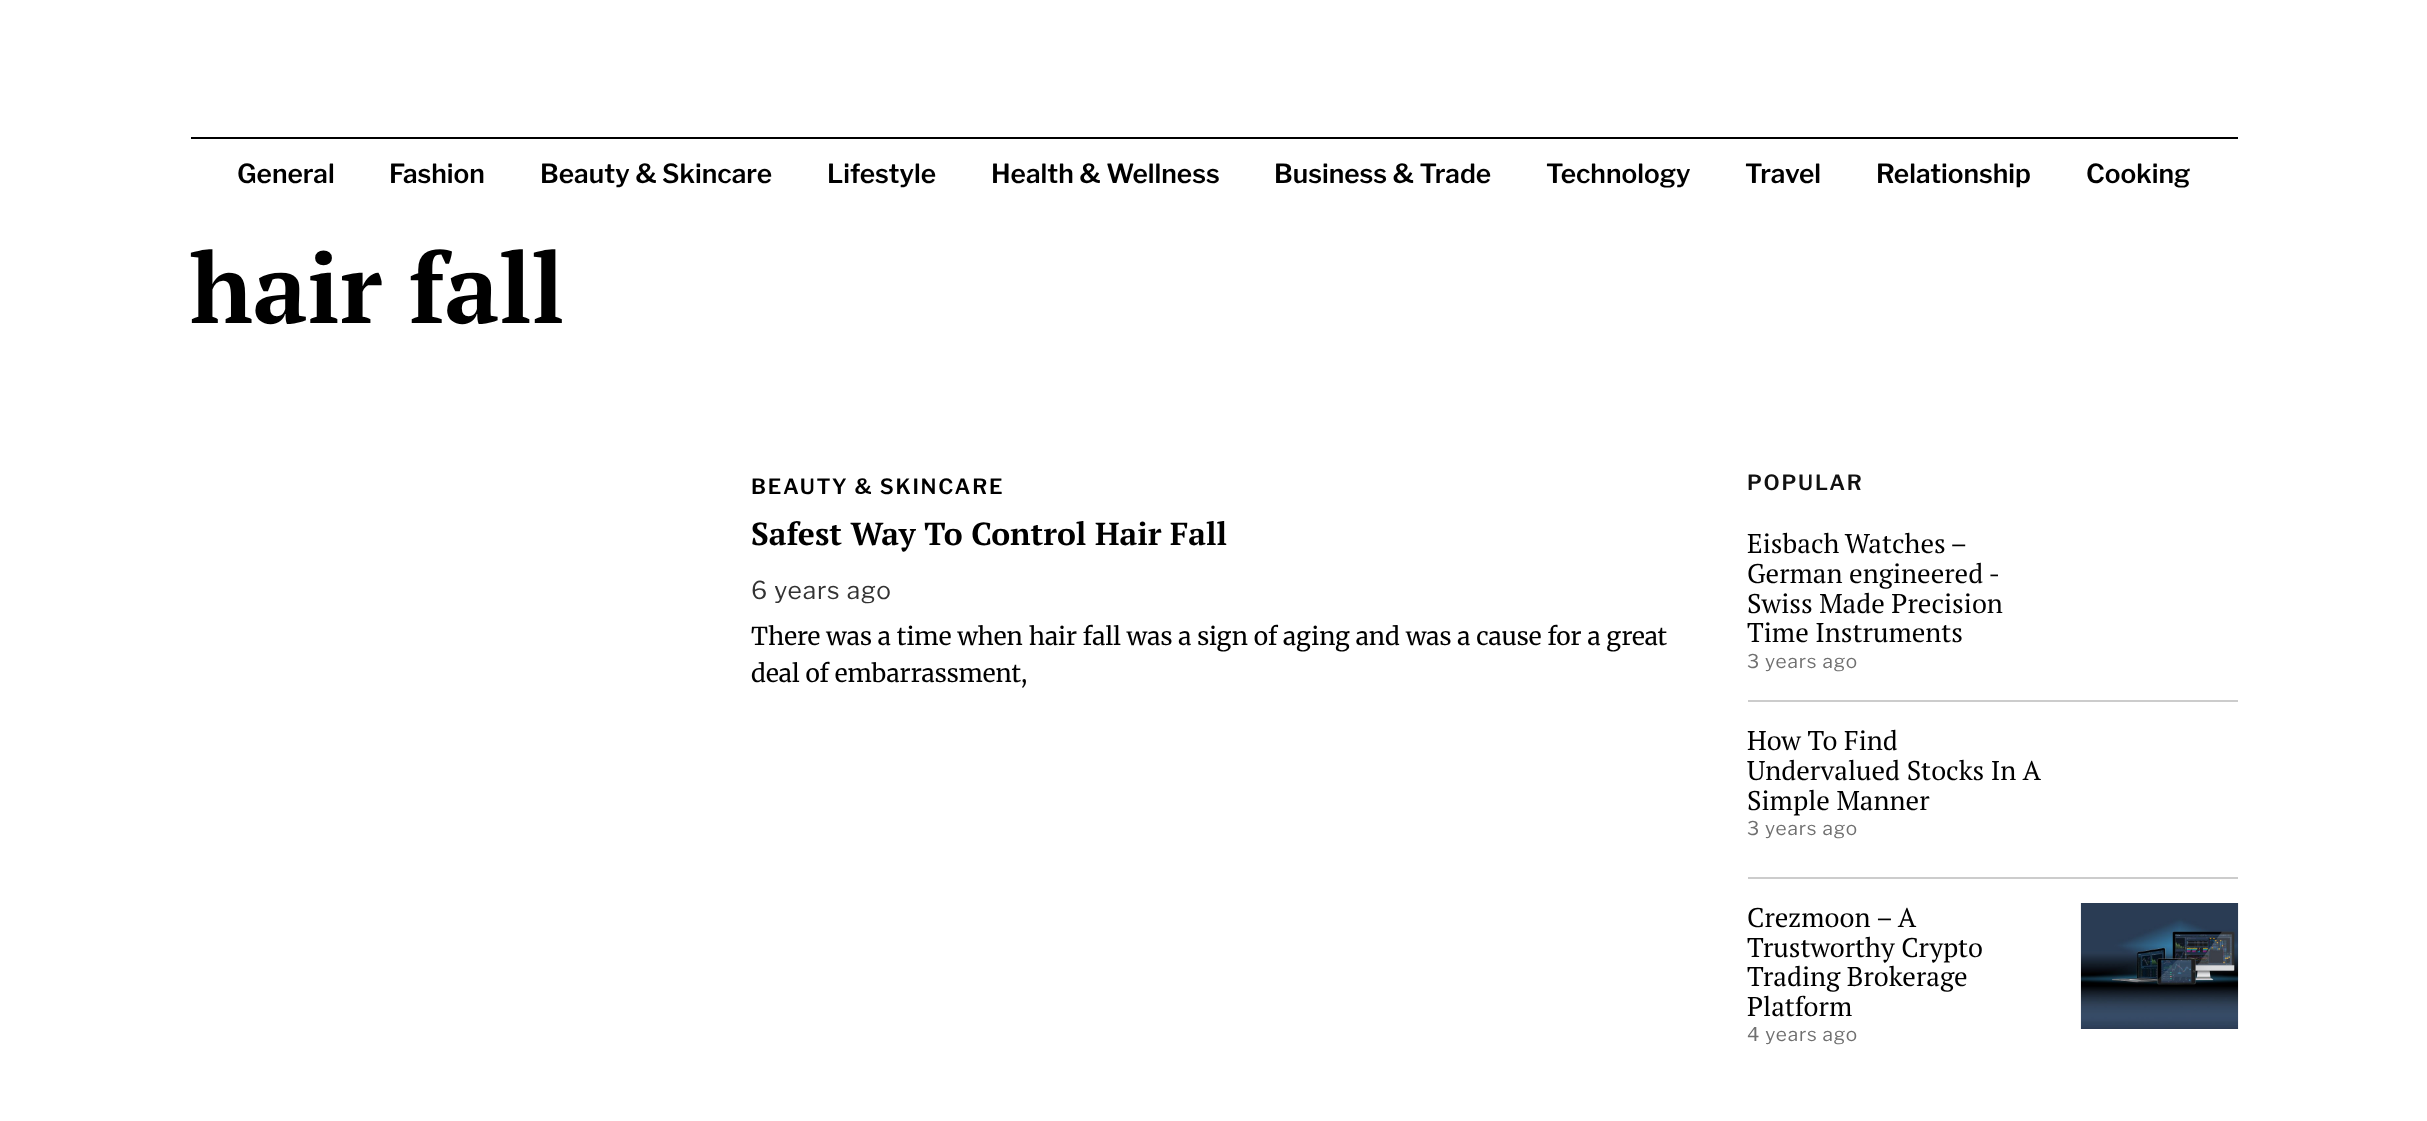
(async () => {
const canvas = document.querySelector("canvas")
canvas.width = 2427
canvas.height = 1121
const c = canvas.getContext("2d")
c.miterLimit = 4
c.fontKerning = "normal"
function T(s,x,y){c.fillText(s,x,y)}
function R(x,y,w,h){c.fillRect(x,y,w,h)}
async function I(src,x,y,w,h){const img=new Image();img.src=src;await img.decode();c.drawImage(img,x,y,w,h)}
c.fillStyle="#fff"
R(0,0,2427,1121)
c.fillStyle="#000"
R(191,137,2047,2)
c.font="600 26.25px Libre Franklin"
T("General",237,183)
T("Fashion",389,183)
T("Beauty & Skincare",540,183)
T("Lifestyle",827,183)
T("Health & Wellness",991,183)
T("Business & Trade",1274,183)
T("Technology",1546,183)
T("Travel",1745,183)
T("Relationship",1876,183)
T("Cooking",2086,183)
c.font="bold 98px PT Serif"
T("hair fall",190,323)
c.letterSpacing="1.75px"
c.font="600 21px Libre Franklin"
T("BEAUTY & SKINCARE",751,494)
c.letterSpacing="0px"
c.font="bold 31.8px PT Serif"
T("Safest Way To Control Hair Fall",751,545)
c.letterSpacing="0.9px"
c.font="24.5px Libre Franklin"
c.fillStyle="#333"
T("6 years ago",751,599)
c.letterSpacing="0px"
c.font="300 24.5px Merriweather"
c.fillStyle="#000"
T("There was a time when hair fall was a sign of aging and was a cause for a great",751,645)
T("deal of embarrassment,",751,682)
c.letterSpacing="1.75px"
c.font="600 21px Libre Franklin"
c.fillStyle="#111"
T("POPULAR",1747,490)
c.letterSpacing="0px"
c.wordSpacing="-1px"
c.font="27px PT Serif"
c.fillStyle="#000"
T("Eisbach Watches –",1747,553)
c.wordSpacing="0px"
T("German engineered -",1747,583)
T("Swiss Made Precision",1747,613)
T("Time Instruments",1747,642)
c.letterSpacing="0.9px"
c.font="19px Libre Franklin"
c.fillStyle="#707070"
T("3 years ago",1747,668)
c.fillStyle="#ccc"
R(1748,700,490,2)
c.letterSpacing="0px"
c.font="27px PT Serif"
c.fillStyle="#000"
T("How To Find",1747,750)
T("Undervalued Stocks In A",1747,780)
T("Simple Manner",1747,810)
c.letterSpacing="0.9px"
c.font="19px Libre Franklin"
c.fillStyle="#707070"
T("3 years ago",1747,835)
c.fillStyle="#ccc"
R(1748,877,490,2)
c.letterSpacing="0px"
c.font="27px PT Serif"
c.fillStyle="#000"
T("Crezmoon – A",1747,927)
T("Trustworthy Crypto",1747,957)
T("Trading Brokerage",1747,986)
T("Platform",1747,1016)
c.letterSpacing="0.9px"
c.font="19px Libre Franklin"
c.fillStyle="#707070"
T("4 years ago",1747,1041)
await I("1.png",2080,903,159,126)
})()
